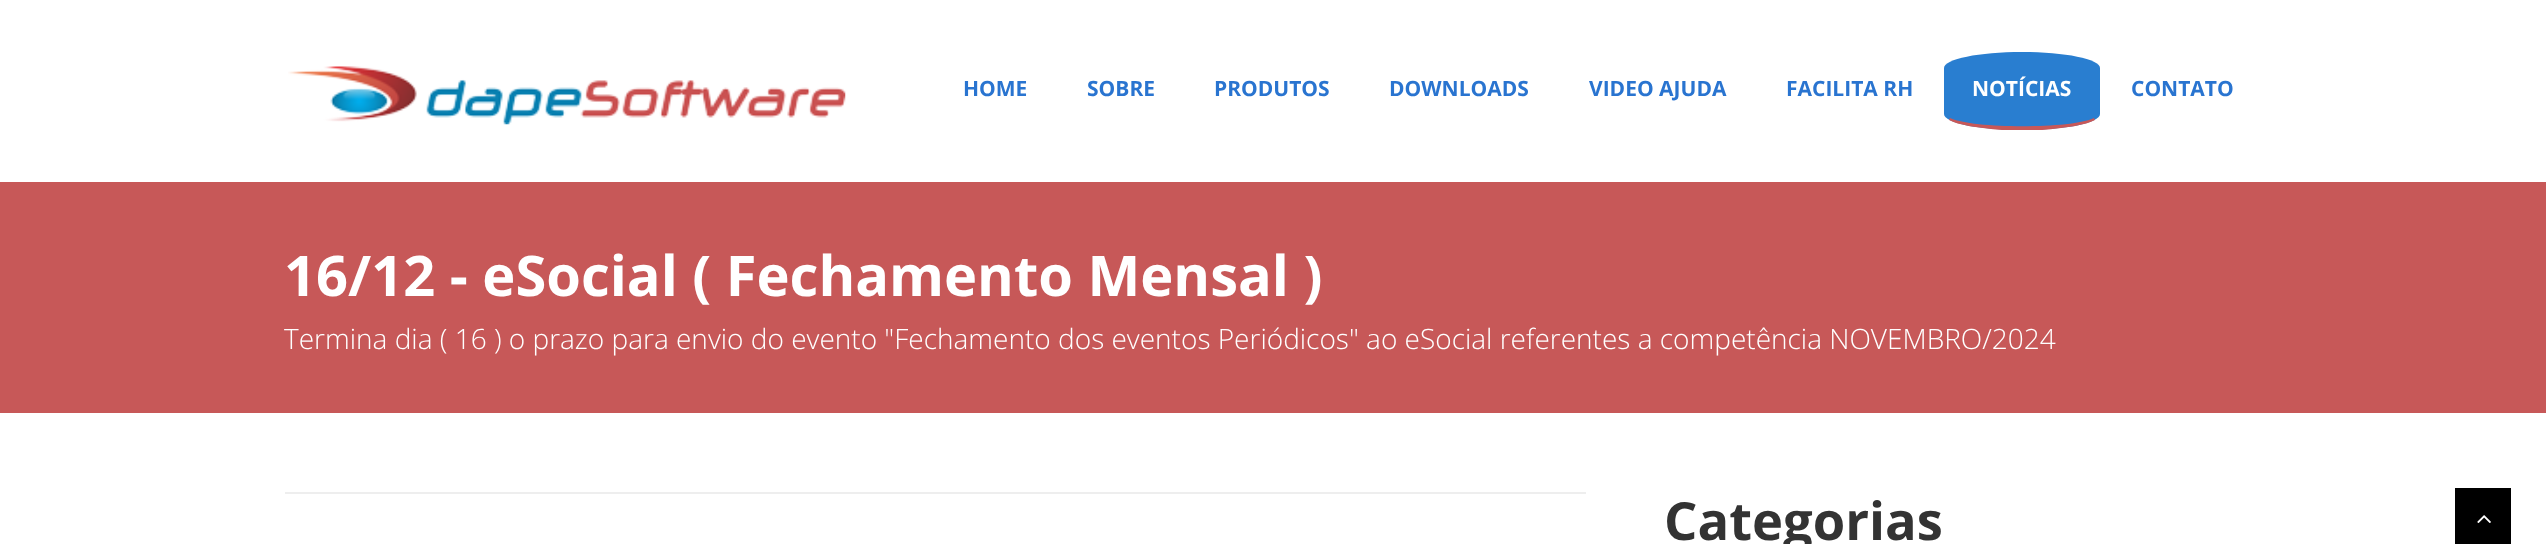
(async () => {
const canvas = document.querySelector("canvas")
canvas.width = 2546
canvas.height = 544
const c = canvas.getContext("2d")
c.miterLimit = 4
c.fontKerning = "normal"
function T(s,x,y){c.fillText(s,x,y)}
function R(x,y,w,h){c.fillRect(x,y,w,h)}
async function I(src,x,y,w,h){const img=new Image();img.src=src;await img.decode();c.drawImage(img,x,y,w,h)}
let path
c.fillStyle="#fff"
R(0,0,2546,544)
await I("1.png",288,66,558,59)
c.font="bold 21px Open Sans"
c.fillStyle="#2974d0"
T("HOME",963,96)
T("SOBRE",1087,96)
T("PRODUTOS",1214,96)
T("DOWNLOADS",1389,96)
T("VIDEO AJUDA",1589,96)
T("FACILITA RH",1786,96)
c.fillStyle="#297ed0"
path = new Path2D("M2022 52c43 0 78 7 78 16v46c0 9-35 16-78 16c-43 0-78-7-78-16v-46c0-9 35-16 78-16z")
c.fill(path)
c.fillStyle="#c75858"
path = new Path2D("M2002 130c-24-2-44-5-53-10l1-2c23 11 122 11 144 0l1 2c-9 5-29 8-53 10z")
c.fill(path)
c.fillStyle="#fff"
T("NOTÍCIAS",1972,96)
c.fillStyle="#2974d0"
T("CONTATO",2131,96)
c.fillStyle="#c75858"
R(0,182,2546,231)
c.font="bold 56px Open Sans"
c.fillStyle="#fff"
T("16/12 - eSocial ( Fechamento Mensal )",284,296)
c.font="300 28px Open Sans"
T("Termina dia ( 16 ) o prazo para envio do evento \"Fechamento dos eventos Periódicos\" ao eSocial referentes a competência NOVEMBRO/2024",284,349)
c.fillStyle="#eee"
R(285,492,1301,2)
c.font="bold 52.5px Open Sans"
c.fillStyle="#333"
T("Categorias",1664,540)
c.fillStyle="#000"
R(2455,488,56,56)
await I("2.png",2477,515,14,8)
})()
